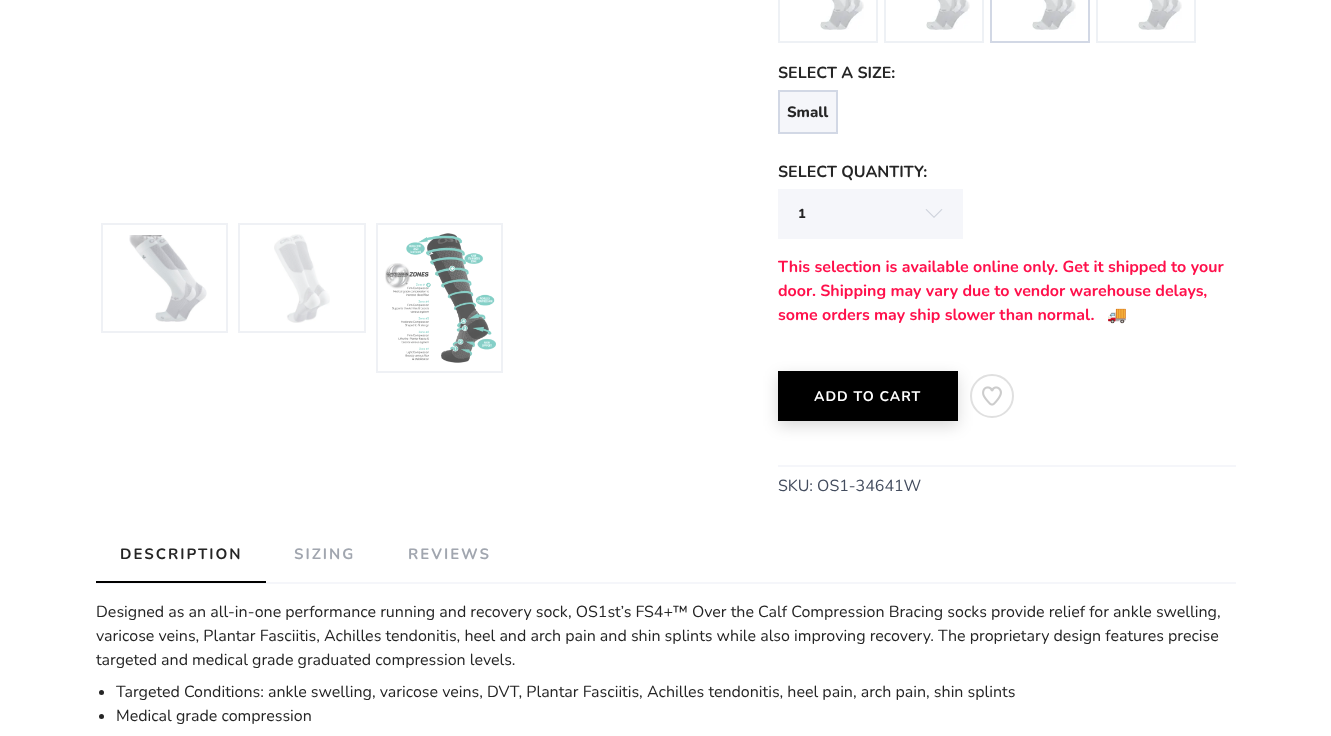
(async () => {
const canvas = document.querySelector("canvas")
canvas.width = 1331
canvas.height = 736
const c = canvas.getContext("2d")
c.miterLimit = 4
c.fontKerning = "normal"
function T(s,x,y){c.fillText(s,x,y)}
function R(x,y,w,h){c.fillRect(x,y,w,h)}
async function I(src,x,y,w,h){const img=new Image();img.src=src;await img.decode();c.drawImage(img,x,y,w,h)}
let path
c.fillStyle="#fff"
R(0,0,1331,736)
c.strokeStyle="#eff1f5"
c.lineWidth=2
c.strokeRect(102,224,125,108)
await I("1.png",129,235,78,87)
c.strokeRect(239,224,126,108)
await I("2.png",274,234,56,89)
c.strokeRect(377,224,125,148)
await I("3.png",385,233,111,130)
await I("4.png",820,0,44,30)
c.strokeStyle="#eef1f5"
c.strokeRect(779,-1,98,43)
await I("4.png",926,0,44,30)
c.strokeRect(885,-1,98,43)
await I("4.png",1032,0,44,30)
c.strokeStyle="#d2d8e5"
c.strokeRect(991,-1,98,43)
await I("4.png",1138,0,44,30)
c.strokeStyle="#eef1f5"
c.strokeRect(1097,-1,98,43)
c.font="bold 16px Nunito"
c.fillStyle="#252525"
T("SELECT A SIZE:",778,78)
c.fillStyle="#f5f6fa"
c.beginPath()
c.rect(779,91,58,42)
c.fill()
c.strokeStyle="#d2d8e5"
c.stroke()
c.font="800 15px Nunito"
c.fillStyle="#252525"
T("Small",787,117)
c.font="bold 16px Nunito"
T("SELECT QUANTITY:",778,177)
c.fillStyle="#f5f6fa"
R(778,189,185,50)
c.letterSpacing="1px"
c.font="800 13px Nunito"
c.fillStyle="#252525"
T("1",798,218)
c.fillStyle="#cdd2db"
path = new Path2D("M942.5 209.5l-8.5 8.5l-8.5-8.5l1-.5l7.5 7.5l7.5-7.5z")
c.fill(path)
c.letterSpacing="0px"
c.font="bold 16px Nunito"
c.fillStyle="#ff104b"
T("This selection is available online only. Get it shipped to your",778,272)
T("door. Shipping may vary due to vendor warehouse delays,",778,296)
T("some orders may ship slower than normal.",778,320)
c.font="bold 16px Noto Color Emoji"
T("🚚",1107,320)
c.fillStyle="#00000026"
c.filter="blur(7.5px)"
c.beginPath()
c.rect(778,376,180,50)
c.fill()
c.filter="none"
c.fillStyle="#000"
R(778,371,180,50)
c.letterSpacing="1px"
c.font="bold 14px Nunito"
c.fillStyle="#fff"
T("ADD TO CART",814,401)
c.beginPath()
c.arc(992,396,21,0,7)
c.strokeStyle="#e0e0e0"
c.stroke()
await I("5.png",982,386,20,20)
c.fillStyle="#f5f6fa"
R(778,465,458,2)
c.letterSpacing="0px"
c.font="16px Nunito"
c.fillStyle="#434c5e"
T("SKU: OS1-34641W",778,491)
c.fillStyle="#f5f6fa"
R(96,582,1140,2)
c.letterSpacing="2px"
c.font="bold 15px Nunito"
c.fillStyle="#252525"
T("DESCRIPTION",120,559)
c.fillStyle="#000"
R(96,581,170,2)
c.fillStyle="#a1a6af"
T("SIZING",294,559)
T("REVIEWS",408,559)
c.letterSpacing="0px"
c.font="16px Nunito"
c.fillStyle="#252525"
T("Designed as an all-in-one performance running and recovery sock, OS1st’s FS4+™ Over the Calf Compression Bracing socks provide relief for ankle swelling,",96,617)
T("varicose veins, Plantar Fasciitis, Achilles tendonitis, heel and arch pain and shin splints while also improving recovery. The proprietary design features precise",96,641)
T("targeted and medical grade graduated compression levels.",96,665)
c.beginPath()
c.arc(101.5,692.5,2.5,0,7)
c.fill()
T("Targeted Conditions: ankle swelling, varicose veins, DVT, Plantar Fasciitis, Achilles tendonitis, heel pain, arch pain, shin splints",116,697)
c.beginPath()
c.arc(101.5,716.5,2.5,0,7)
c.fill()
T("Medical grade compression",116,721)
})()
